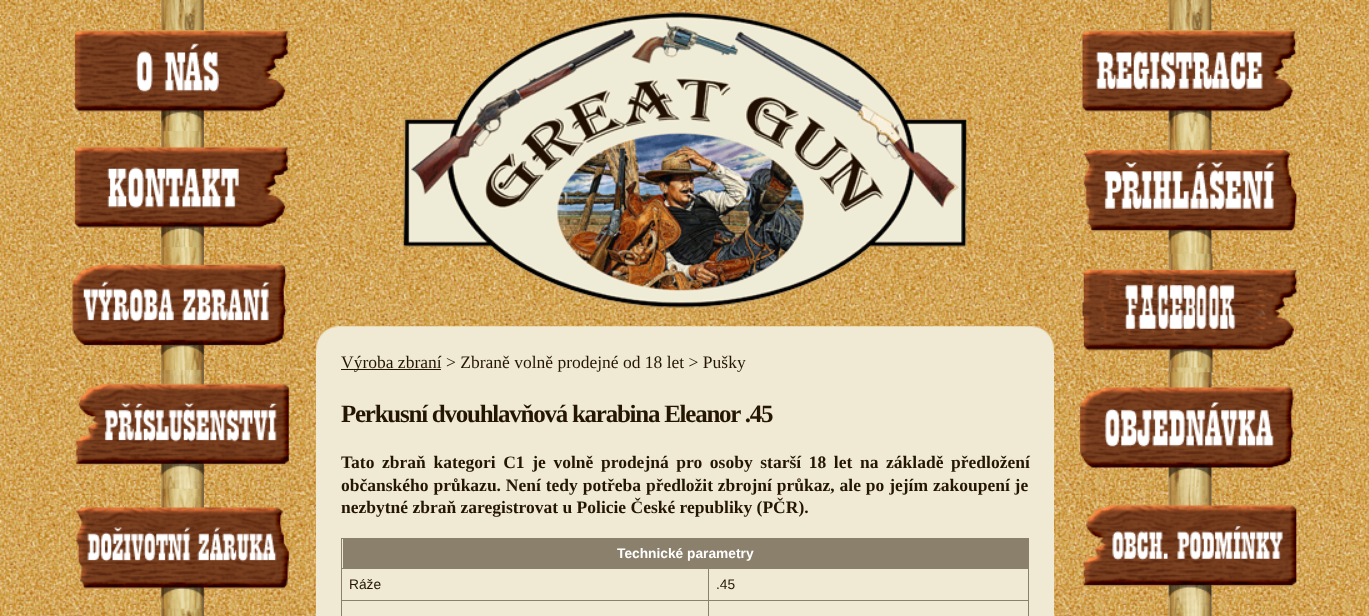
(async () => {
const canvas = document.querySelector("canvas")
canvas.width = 1369
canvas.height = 616
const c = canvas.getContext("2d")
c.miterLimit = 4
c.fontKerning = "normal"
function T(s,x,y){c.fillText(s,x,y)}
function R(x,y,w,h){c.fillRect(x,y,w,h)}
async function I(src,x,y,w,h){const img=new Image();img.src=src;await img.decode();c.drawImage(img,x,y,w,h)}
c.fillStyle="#fff"
R(0,0,1369,616)
await I("1.png",0,0,1369,616)
await I("2.png",161,0,1051,616)
await I("3.png",74,29,215,103)
await I("4.png",74,131,215,117)
await I("5.png",72,247,215,123)
await I("6.png",75,370,214,119)
await I("7.png",75,488,215,121)
await I("8.png",161,608,43,8)
await I("9.png",403,12,564,296)
await I("10.png",316,326,738,25)
c.fillStyle="#f0ead4"
R(316,351,738,265)
c.fillStyle="#251603"
R(341,369,100,1)
c.font="17.5px Liberation Serif"
T("Výroba zbraní > Zbraně volně prodejné od 18 let > Pušky",341,368)
c.letterSpacing="-1.25px"
c.font="bold 25px Liberation Serif"
T("Perkusní dvouhlavňová karabina Eleanor .45",341,422)
c.letterSpacing="0px"
c.wordSpacing="3.25px"
c.font="bold 17.5px Liberation Serif"
T("Tato zbraň kategori C1 je volně prodejná pro osoby starší 18 let na základě předložení",341,468)
c.wordSpacing="0.5px"
T("občanského průkazu. Není tedy potřeba předložit zbrojní průkaz, ale po jejím zakoupení je",341,491)
c.wordSpacing="0px"
T("nezbytné zbraň zaregistrovat u Policie České republiky (PČR).",341,513)
c.fillStyle="#8a806b"
R(343,539,686,29)
R(341,538,688,1)
R(708,568,321,1)
R(708,600,321,1)
R(708,600,1,16)
R(341,600,368,1)
R(708,568,1,33)
R(341,568,368,1)
R(341,600,1,16)
R(341,568,1,33)
R(341,538,1,31)
c.font="bold 13.75px Liberation Sans"
c.fillStyle="#fff"
T("Technické parametry",617,558)
c.font="13.75px Liberation Sans"
c.fillStyle="#251603"
T("Ráže",349,589)
c.fillStyle="#8a806b"
R(1028,600,1,16)
R(1028,568,1,33)
c.fillStyle="#251603"
T(".45",716,589)
await I("11.png",1082,29,215,101)
await I("12.png",1082,130,216,124)
await I("13.png",1082,253,216,120)
await I("14.png",1080,372,214,116)
await I("15.png",1082,487,215,118)
await I("16.png",1168,605,44,11)
})()
